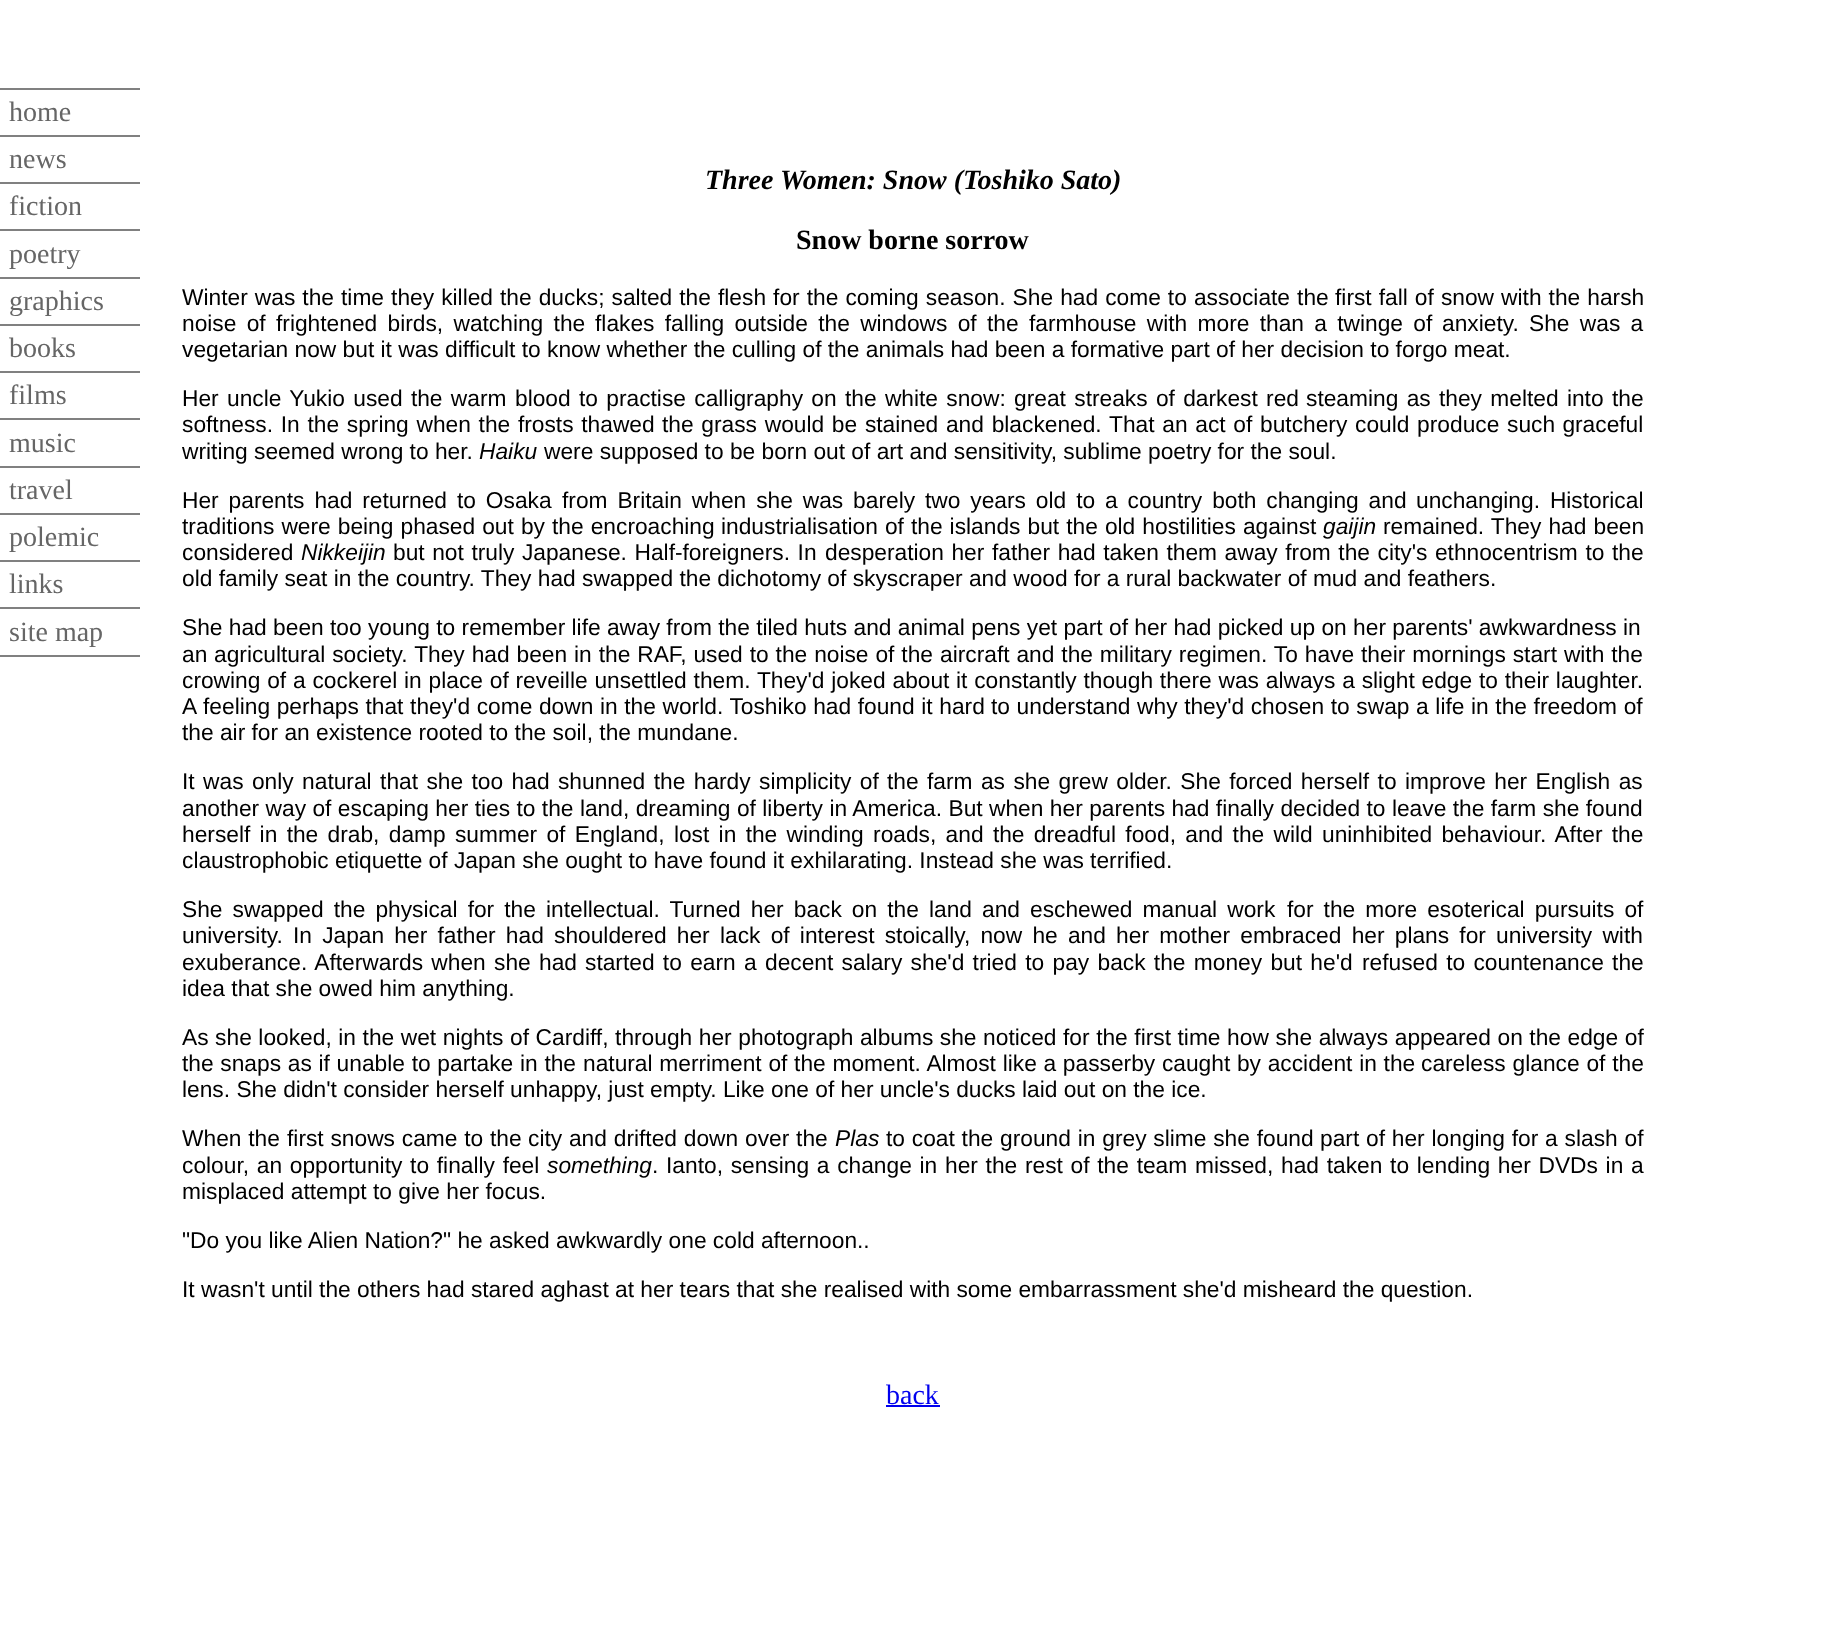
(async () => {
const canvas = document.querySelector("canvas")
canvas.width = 1826
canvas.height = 1652
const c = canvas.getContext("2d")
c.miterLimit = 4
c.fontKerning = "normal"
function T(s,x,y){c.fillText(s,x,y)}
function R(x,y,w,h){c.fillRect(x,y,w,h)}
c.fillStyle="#fff"
R(0,0,1826,1652)
c.fillStyle="#808080"
R(0,655,140,2)
R(0,88,140,2)
c.font="28px Liberation Serif"
c.fillStyle="#666"
T("home",9,121)
c.fillStyle="#808080"
R(0,135,140,2)
c.fillStyle="#666"
T("news",9,168)
c.fillStyle="#808080"
R(0,182,140,2)
c.fillStyle="#666"
T("fiction",9,215)
c.fillStyle="#808080"
R(0,229,140,2)
c.fillStyle="#666"
T("poetry",9,263)
c.fillStyle="#808080"
R(0,277,140,2)
c.fillStyle="#666"
T("graphics",9,310)
c.fillStyle="#808080"
R(0,324,140,2)
c.fillStyle="#666"
T("books",9,357)
c.fillStyle="#808080"
R(0,371,140,2)
c.fillStyle="#666"
T("films",9,404)
c.fillStyle="#808080"
R(0,418,140,2)
c.fillStyle="#666"
T("music",9,452)
c.fillStyle="#808080"
R(0,466,140,2)
c.fillStyle="#666"
T("travel",9,499)
c.fillStyle="#808080"
R(0,513,140,2)
c.fillStyle="#666"
T("polemic",9,546)
c.fillStyle="#808080"
R(0,560,140,2)
c.fillStyle="#666"
T("links",9,593)
c.fillStyle="#808080"
R(0,607,140,2)
c.fillStyle="#666"
T("site map",9,641)
c.font="italic bold 28px Liberation Serif"
c.fillStyle="#000"
T("Three Women: Snow (Toshiko Sato)",705,189)
c.font="bold 28px Liberation Serif"
T("Snow borne sorrow",796,249)
c.wordSpacing="0.75px"
c.font="22.75px Liberation Sans"
T("Winter was the time they killed",182,305)
T("the ducks; salted the flesh for the coming season. She had come to associate the",500,305)
T("first fall of snow with the harsh",1335,305)
c.wordSpacing="4px"
T("noise of frightened birds, watching the",182,331)
T("flakes falling outside the windows of the farmhouse with more than a twinge of",595,331)
T("anxiety. She was a",1442,331)
c.wordSpacing="0px"
T("vegetarian now but it was difficult to know whether the culling of the animals had been a formative part of her decision to forgo meat.",182,357)
c.wordSpacing="2px"
T("Her uncle Yukio used the warm",182,406)
T("blood to practise calligraphy on the white snow: great streaks of darkest red",515,406)
T("steaming as they melted into the",1306,406)
c.wordSpacing="1.4px"
T("softness. In the spring when the frosts thawed",182,432)
T("the grass would be stained and blackened. That an act of butchery could produce",662,432)
c.wordSpacing="1px"
T("such graceful",1507,432)
c.wordSpacing="0px"
T("writing seemed wrong to her.",182,459)
c.font="italic 22.75px Liberation Sans"
T("Haiku",479,459)
c.font="22.75px Liberation Sans"
T("were supposed to be born out of art and sensitivity, sublime poetry for the soul.",544,459)
c.wordSpacing="3.6px"
T("Her parents had returned to Osaka",182,508)
T("from Britain when she was barely two years old to a country both changing and",562,508)
T("unchanging. Historical",1416,508)
c.wordSpacing="0.75px"
T("traditions were being phased out by the encroaching",182,534)
T("industrialisation of the islands but the old hostilities against",721,534)
c.wordSpacing="0px"
c.font="italic 22.75px Liberation Sans"
T("gaijin",1323,534)
c.wordSpacing="0.75px"
c.font="22.75px Liberation Sans"
T("remained. They had been",1383,534)
c.wordSpacing="0px"
T("considered",182,560)
c.font="italic 22.75px Liberation Sans"
T("Nikkeijin",301,560)
c.wordSpacing="1.25px"
c.font="22.75px Liberation Sans"
T("but not truly Japanese. Half-foreigners. In",393,560)
T("desperation her father had taken them away from the city's ethnocentrism to the",825,560)
c.wordSpacing="0px"
T("old family seat in the country. They had swapped the dichotomy of skyscraper and wood for a rural backwater of mud and feathers.",182,586)
T("She had been too young to remember life away from the tiled huts and animal pens yet part of her had picked up on her parents' awkwardness in",182,635)
T("an",182,662)
c.wordSpacing="0.6px"
T("agricultural society. They had been in the RAF, used to the noise of the",214,662)
T("aircraft and the military regimen. To have their mornings start with the",940,662)
c.wordSpacing="0.5px"
T("crowing of a cockerel in place of reveille unsettled them. They'd joked about",182,688)
T("it constantly though there was always a slight edge to their laughter.",956,688)
c.wordSpacing="0px"
T("A",182,714)
c.wordSpacing="0.3px"
T("feeling perhaps that they'd come down in the world. Toshiko had found it hard",203,714)
T("to understand why they'd chosen to swap a life in the freedom of",991,714)
c.wordSpacing="0px"
T("the air for an existence rooted to the soil, the mundane.",182,740)
c.wordSpacing="2.1px"
T("It was only natural that she too had shunned the hardy simplicity of",182,789)
T("the farm as she grew older. She forced herself to improve her English as",887,789)
c.wordSpacing="0.1px"
T("another way of escaping her ties to the land, dreaming of liberty in America. But when her parents had finally decided to leave the farm she found",182,816)
c.wordSpacing="3px"
T("herself in the drab, damp summer of England, lost in the winding roads, and the dreadful food, and the wild uninhibited behaviour. After the",182,842)
c.wordSpacing="0px"
T("claustrophobic etiquette of Japan she ought to have found it exhilarating. Instead she was terrified.",182,868)
c.wordSpacing="3.75px"
T("She swapped the physical for the",182,917)
T("intellectual. Turned her back on the land and eschewed manual work",546,917)
T("for the more esoterical pursuits of",1287,917)
c.wordSpacing="3.9px"
T("university. In Japan her father had shouldered her",182,943)
T("lack of interest stoically, now he and her mother embraced her plans for university with",720,943)
c.wordSpacing="2px"
T("exuberance. Afterwards when she had",182,970)
T("started to earn a decent salary she'd tried to pay back the money but he'd",585,970)
T("refused to countenance the",1362,970)
c.wordSpacing="0px"
T("idea that she owed him anything.",182,996)
c.wordSpacing="0.25px"
T("As she looked, in the wet nights of Cardiff, through her photograph albums she noticed for the first time how she always appeared on the edge of",182,1045)
c.wordSpacing="0.4px"
T("the snaps as if unable to partake in the",182,1071)
T("natural merriment of the moment. Almost like a passerby caught by accident in the",583,1071)
c.wordSpacing="0.5px"
T("careless glance of the",1421,1071)
c.wordSpacing="0px"
T("lens. She didn't consider herself unhappy, just empty. Like one of her uncle's ducks laid out on the ice.",182,1097)
c.wordSpacing="0.5px"
T("When the",182,1146)
T("first snows came to the",287,1146)
T("city and drifted down over the",528,1146)
c.wordSpacing="0px"
c.font="italic 22.75px Liberation Sans"
T("Plas",835,1146)
c.wordSpacing="0.5px"
c.font="22.75px Liberation Sans"
T("to coat the ground in grey slime she found",886,1146)
T("part of her longing for a slash of",1320,1146)
c.wordSpacing="1.4px"
T("colour, an opportunity to finally feel",182,1173)
c.wordSpacing="0px"
c.font="italic 22.75px Liberation Sans"
T("something",547,1173)
c.wordSpacing="1.4px"
c.font="22.75px Liberation Sans"
T(". Ianto, sensing a change in",652,1173)
T("her the rest of the team missed, had taken to lending her DVDs in a",945,1173)
c.wordSpacing="0px"
T("misplaced attempt to give her focus.",182,1199)
T("\"Do you like Alien Nation?\" he asked awkwardly one cold afternoon..",182,1248)
T("It wasn't until the others had stared aghast at her tears that she realised with some embarrassment she'd misheard the question.",182,1297)
c.font="28px Liberation Serif"
c.fillStyle="#00e"
T("back",886,1404)
R(886,1405,54,2)
})()
